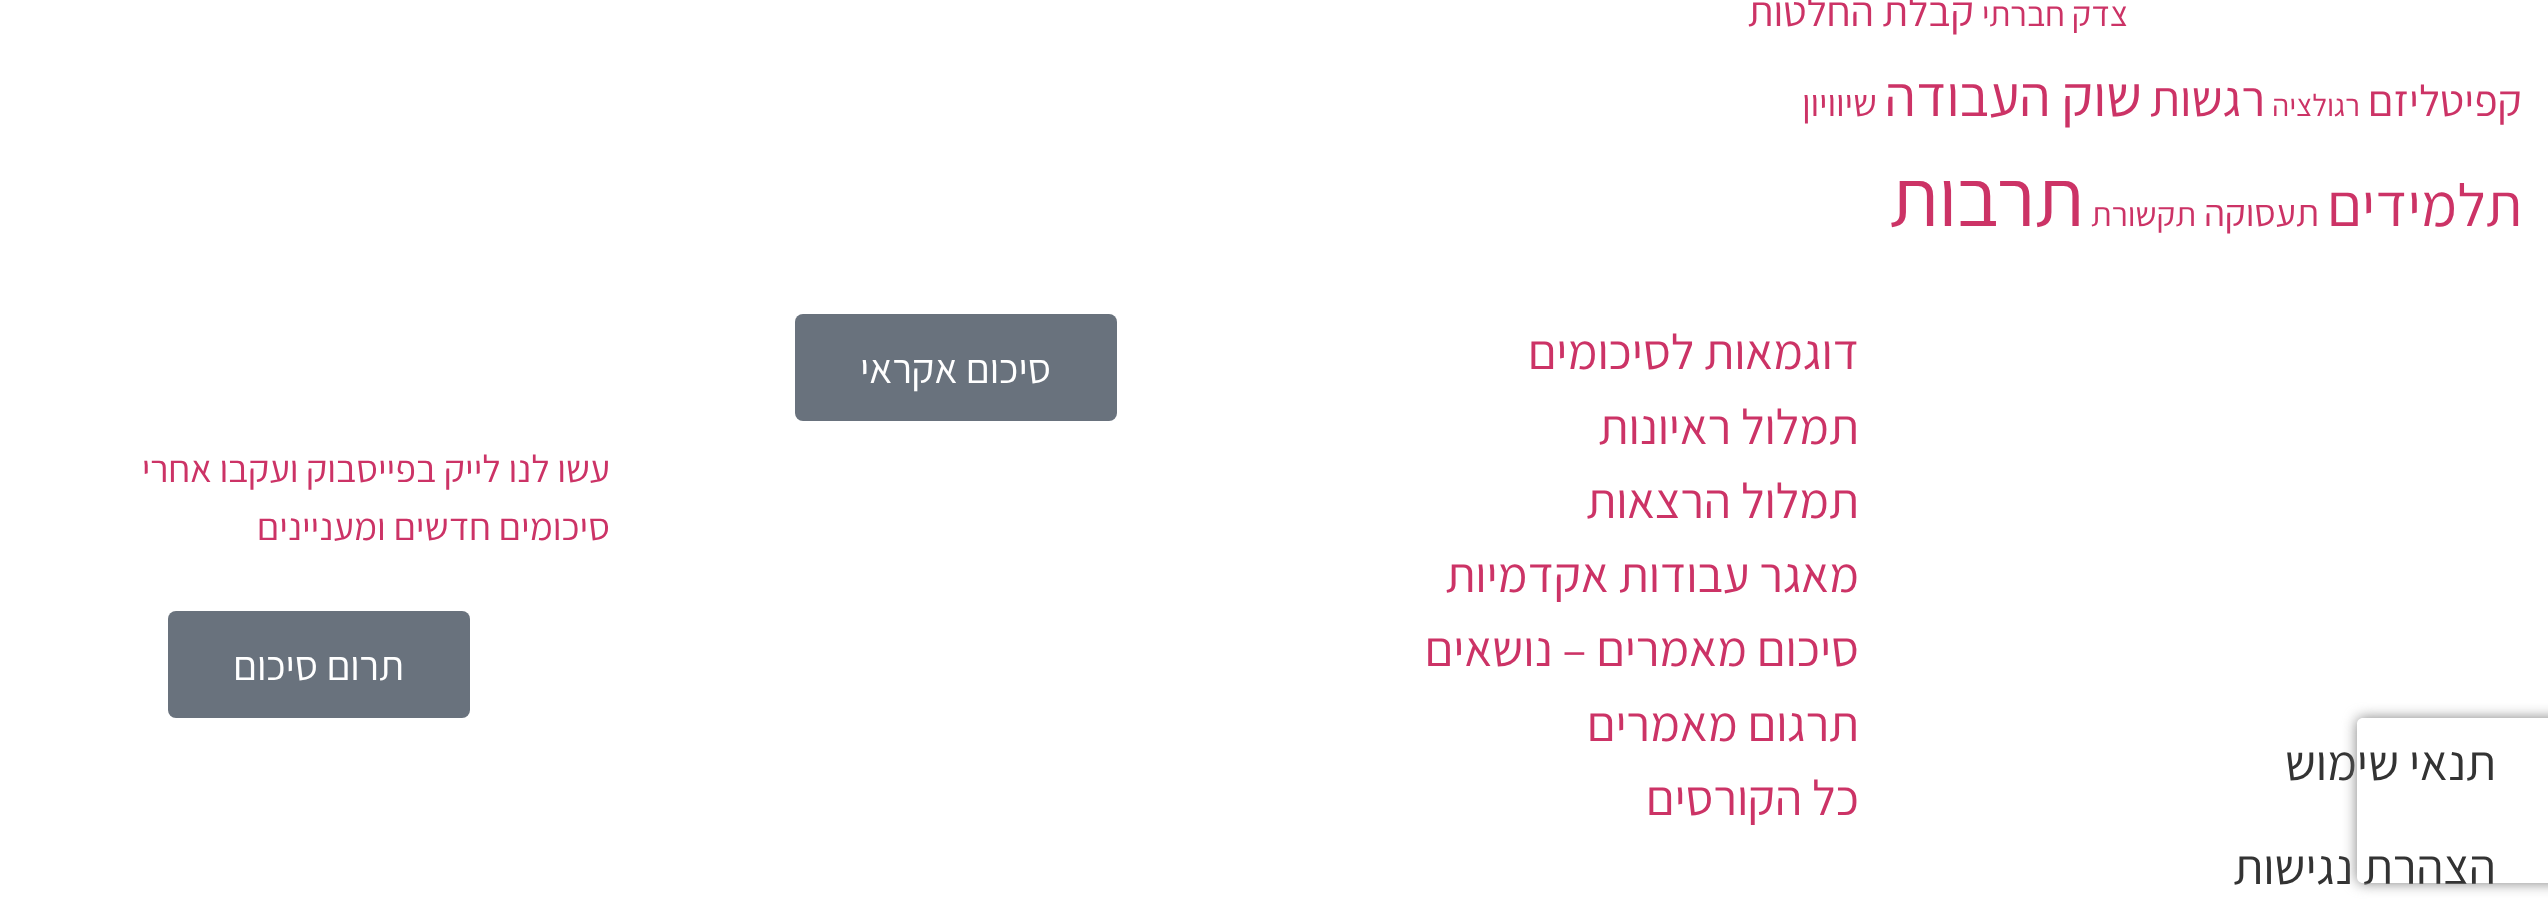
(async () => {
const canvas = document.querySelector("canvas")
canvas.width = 2548
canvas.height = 919
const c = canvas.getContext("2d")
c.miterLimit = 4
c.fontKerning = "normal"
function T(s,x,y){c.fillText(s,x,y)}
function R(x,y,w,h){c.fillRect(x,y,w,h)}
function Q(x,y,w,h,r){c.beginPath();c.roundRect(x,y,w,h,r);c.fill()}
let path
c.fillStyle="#fff"
R(0,0,2548,919)
c.direction="rtl"
c.font="35px Assistant"
c.fillStyle="#c36"
T("צדק חברתי",2128,26)
c.font="42.5px Assistant"
T("קבלת החלטות",1974,26)
c.font="44px Assistant"
T("קפיטליזם",2522,116)
c.font="31px Assistant"
T("רגולציה",2360,116)
c.font="50px Assistant"
T("רגשות",2265,116)
c.font="57px Assistant"
T("שוק העבודה",2142,116)
c.font="38px Assistant"
T("שיוויון",1877,116)
c.font="60px Assistant"
T("תלמידים",2522,226)
c.font="38px Assistant"
T("תעסוקה",2319,226)
c.font="34px Assistant"
T("תקשורת",2196,226)
c.font="81px Assistant"
T("תרבות",2084,226)
c.font="49.5px Assistant"
T("דוגמאות לסיכומים",1859,369)
T("תמלול ראיונות",1859,444)
T("תמלול הרצאות",1859,518)
T("מאגר עבודות אקדמיות",1859,592)
T("סיכום מאמרים – נושאים",1859,666)
T("תרגום מאמרים",1859,741)
T("כל הקורסים",1859,815)
c.fillStyle="#69727d"
Q(795,314,322,107,8)
c.font="41.25px Assistant"
c.fillStyle="#fff"
T("סיכום אקראי",1051,383)
c.font="38.5px Assistant"
c.fillStyle="#c36"
T("עשו לנו לייק בפייסבוק ועקבו אחרי",610,482)
T("סיכומים חדשים ומעניינים",610,540)
c.fillStyle="#69727d"
Q(168,611,302,107,8)
c.font="41.25px Assistant"
c.fillStyle="#fff"
T("תרום סיכום",404,680)
c.font="49.5px Assistant"
c.fillStyle="#333"
T("תנאי שימוש",2496,780)
T("הצהרת נגישות",2496,884)
c.save()
path = new Path2D("M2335 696h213v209h-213zm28 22h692c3.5 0 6 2.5 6 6v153c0 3.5-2.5 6-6 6h-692c-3.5 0-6-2.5-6-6v-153c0-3.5 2.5-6 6-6z")
c.clip(path,"evenodd")
c.fillStyle="#808080"
c.filter="blur(7px)"
c.beginPath()
c.roundRect(2357,718,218,165,6)
c.fill()
c.filter="none"
c.restore()
})()
